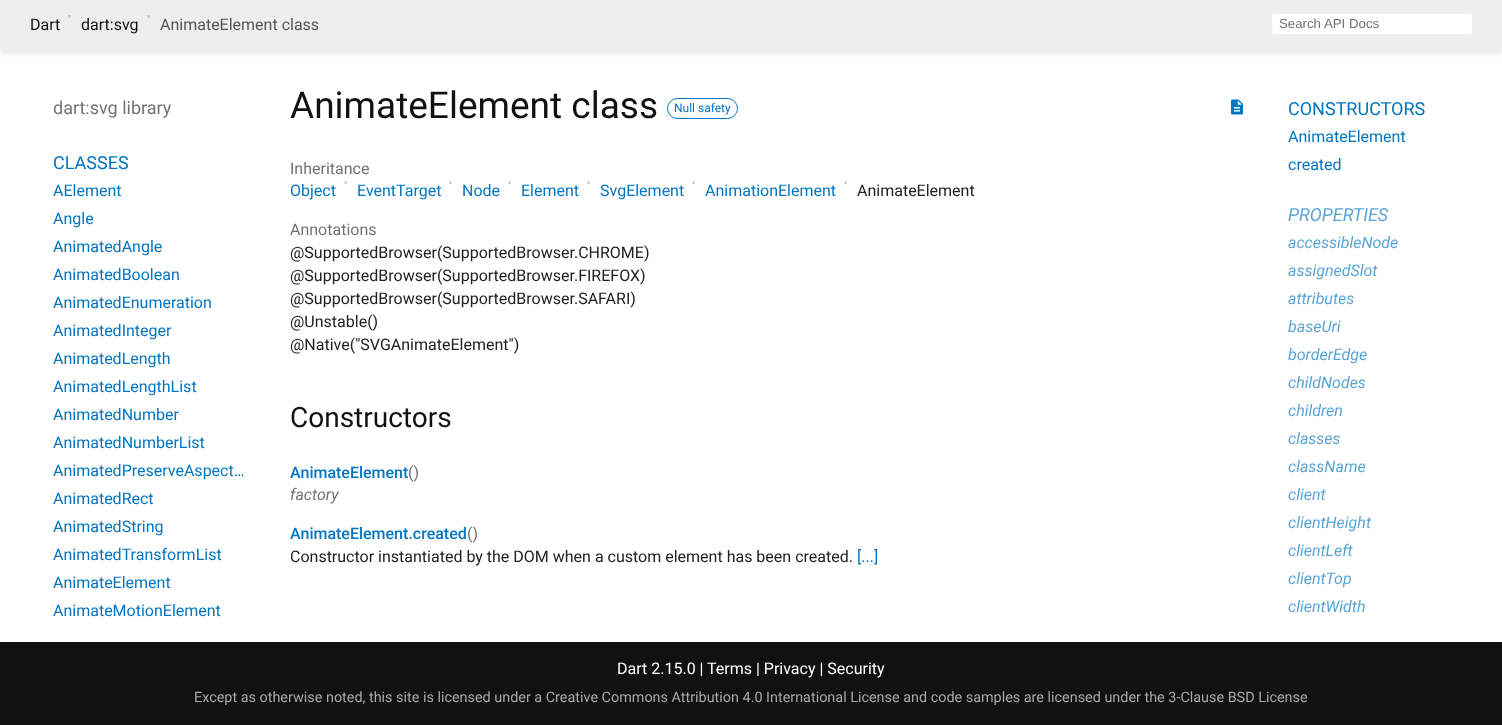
(async () => {
const canvas = document.querySelector("canvas")
canvas.width = 1502
canvas.height = 725
const c = canvas.getContext("2d")
c.miterLimit = 4
c.fontKerning = "normal"
function T(s,x,y){c.fillText(s,x,y)}
function R(x,y,w,h){c.fillRect(x,y,w,h)}
function Q(x,y,w,h,r){c.beginPath();c.roundRect(x,y,w,h,r);c.fill()}
async function I(src,x,y,w,h){const img=new Image();img.src=src;await img.decode();c.drawImage(img,x,y,w,h)}
c.fillStyle="#fff"
R(0,0,1502,725)
c.fillStyle="#0000001a"
c.filter="blur(2.5px)"
c.beginPath()
c.rect(0,3,1502,50)
c.fill()
c.filter="none"
c.fillStyle="#eee"
R(0,0,1502,50)
c.font="16px Roboto"
c.fillStyle="#111"
T("Dart",30,30)
c.fillStyle="#cfcfcf"
R(68,15,3,3)
c.fillStyle="#111"
T("dart:svg",81,30)
c.fillStyle="#cfcfcf"
R(147,15,3,3)
c.fillStyle="#555"
T("AnimateElement class",160,30)
c.fillStyle="#fff"
Q(1272,14,200,20,2)
c.font="13.25px Liberation Sans"
c.fillStyle="#727272"
T("Search API Docs",1279,28)
c.font="18px Roboto"
T("dart:svg library",53,114)
c.fillStyle="#0175c2"
T("CLASSES",53,169)
c.font="16px Roboto"
T("AElement",53,196)
T("Angle",53,224)
T("AnimatedAngle",53,252)
T("AnimatedBoolean",53,280)
T("AnimatedEnumeration",53,308)
T("AnimatedInteger",53,336)
T("AnimatedLength",53,364)
T("AnimatedLengthList",53,392)
T("AnimatedNumber",53,420)
T("AnimatedNumberList",53,448)
T("AnimatedPreserveAspect…",53,476)
T("AnimatedRect",53,504)
T("AnimatedString",53,532)
T("AnimatedTransformList",53,560)
T("AnimateElement",53,588)
T("AnimateMotionElement",53,616)
c.font="37px Roboto"
c.fillStyle="#111"
T("AnimateElement class",290,118)
c.beginPath()
c.roundRect(667.5,98.5,70,20,10)
c.strokeStyle="#0175c2"
c.stroke()
c.font="12px Roboto"
c.fillStyle="#0175c2"
T("Null safety",674,112)
await I("1.png",1231,99,12,16)
c.font="16px Roboto"
c.fillStyle="#727272"
T("Inheritance",290,174)
c.fillStyle="#0175c2"
T("Object",290,196)
c.fillStyle="#dcdcdc"
R(344,181,3,3)
c.fillStyle="#0175c2"
T("EventTarget",357,196)
c.fillStyle="#dcdcdc"
R(449,181,3,3)
c.fillStyle="#0175c2"
T("Node",462,196)
c.fillStyle="#dcdcdc"
R(508,181,3,3)
c.fillStyle="#0175c2"
T("Element",521,196)
c.fillStyle="#dcdcdc"
R(587,181,3,3)
c.fillStyle="#0175c2"
T("SvgElement",600,196)
c.fillStyle="#dcdcdc"
R(692,181,3,3)
c.fillStyle="#0175c2"
T("AnimationElement",705,196)
c.fillStyle="#dcdcdc"
R(844,181,3,3)
c.fillStyle="#212121"
T("AnimateElement",857,196)
c.fillStyle="#727272"
T("Annotations",290,235)
c.fillStyle="#212121"
T("@SupportedBrowser(SupportedBrowser.CHROME)",290,258)
T("@SupportedBrowser(SupportedBrowser.FIREFOX)",290,281)
T("@SupportedBrowser(SupportedBrowser.SAFARI)",290,304)
T("@Unstable()",290,327)
T("@Native(\"SVGAnimateElement\")",290,350)
c.font="28px Roboto"
c.fillStyle="#111"
T("Constructors",290,427)
c.font="500 16px Roboto"
c.fillStyle="#0175c2"
T("AnimateElement",290,478)
c.font="16px Roboto"
c.fillStyle="#727272"
T("()",408,478)
c.font="italic 16px Roboto"
T("factory",290,500)
c.font="500 16px Roboto"
c.fillStyle="#0175c2"
T("AnimateElement.created",290,539)
c.font="16px Roboto"
c.fillStyle="#727272"
T("()",467,539)
c.fillStyle="#212121"
T("Constructor instantiated by the DOM when a custom element has been created.",290,562)
c.fillStyle="#0175c2"
T("[...]",857,562)
c.font="18px Roboto"
T("CONSTRUCTORS",1288,115)
c.font="16px Roboto"
T("AnimateElement",1288,142)
T("created",1288,170)
c.font="italic 18px Roboto"
c.fillStyle="#5aa5d7"
T("PROPERTIES",1288,221)
c.font="italic 16px Roboto"
T("accessibleNode",1288,248)
T("assignedSlot",1288,276)
T("attributes",1288,304)
T("baseUri",1288,332)
T("borderEdge",1288,360)
T("childNodes",1288,388)
T("children",1288,416)
T("classes",1288,444)
T("className",1288,472)
T("client",1288,500)
T("clientHeight",1288,528)
T("clientLeft",1288,556)
T("clientTop",1288,584)
T("clientWidth",1288,612)
c.fillStyle="#111"
R(0,642,1502,83)
c.font="16px Roboto"
c.fillStyle="#fff"
T("Terms | Privacy | Security",707,674)
c.font="14.4px Roboto"
c.fillStyle="#a9a9a9"
T("Except as otherwise noted, this site is licensed under a Creative Commons Attribution 4.0 International License and code samples are licensed under the 3-Clause BSD License",194,702)
c.font="16px Roboto"
c.fillStyle="#fff"
T("Dart 2.15.0 |",617,674)
})()
